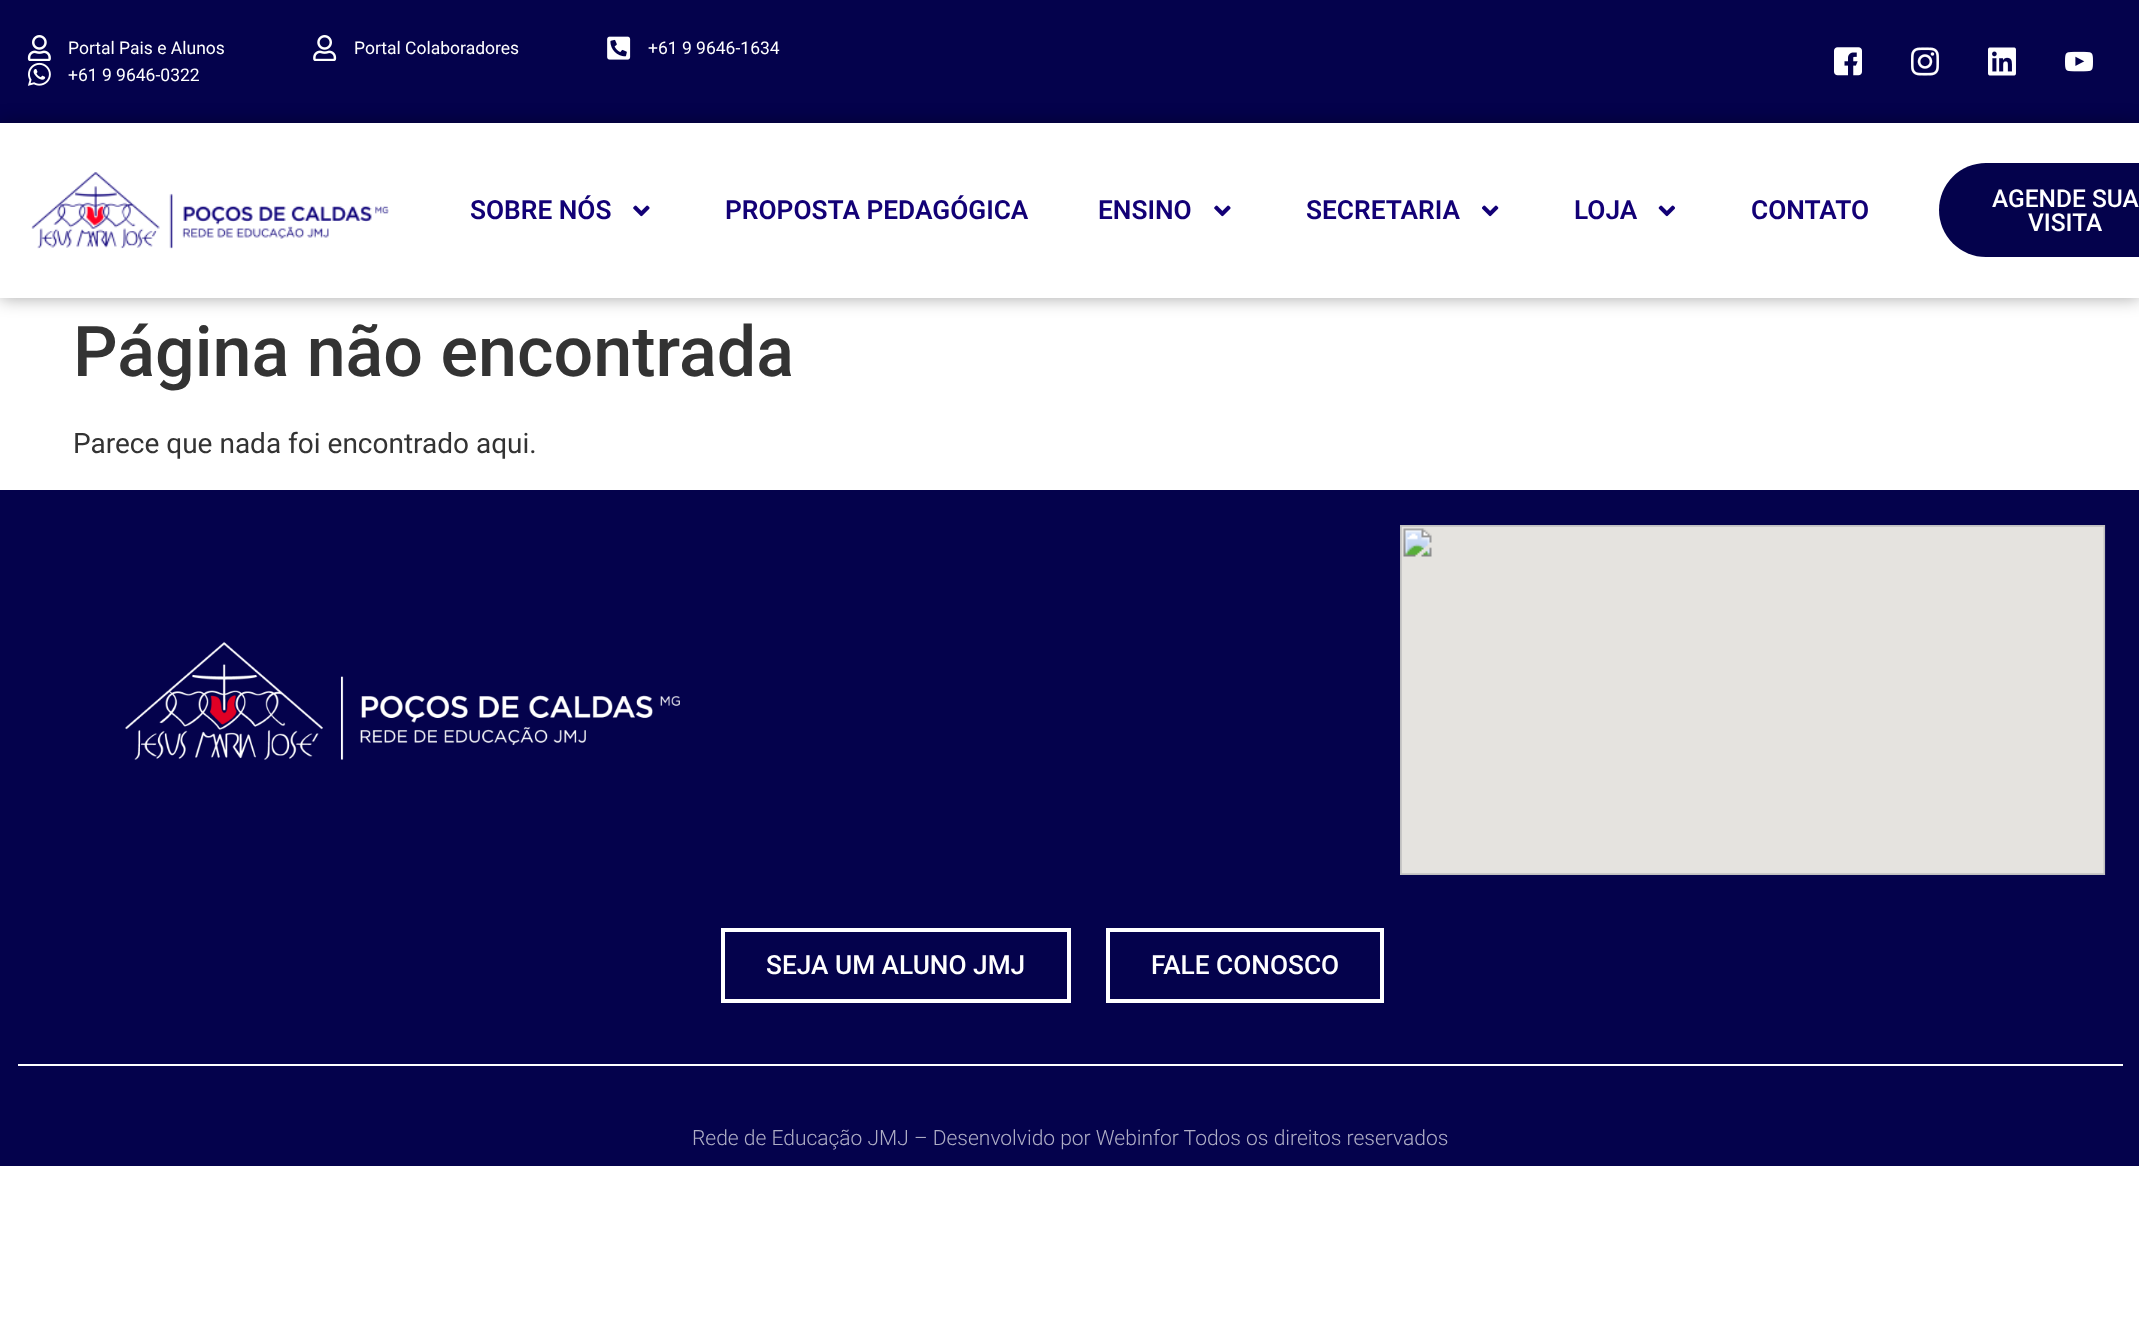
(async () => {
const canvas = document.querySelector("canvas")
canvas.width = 2139
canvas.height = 1324
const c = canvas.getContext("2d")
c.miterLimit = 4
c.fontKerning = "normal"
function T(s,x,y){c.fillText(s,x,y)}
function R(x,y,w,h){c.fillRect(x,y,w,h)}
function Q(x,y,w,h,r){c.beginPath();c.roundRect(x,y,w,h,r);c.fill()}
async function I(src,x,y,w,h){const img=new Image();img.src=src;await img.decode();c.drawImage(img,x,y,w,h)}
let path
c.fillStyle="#fff"
R(0,0,2139,1324)
c.fillStyle="#04024c"
R(0,0,2139,123)
await I("1.png",27,35,24,26)
c.font="17.5px Roboto"
c.fillStyle="#fff"
T("Portal Pais e Alunos",68,54)
await I("2.png",313,35,24,26)
T("Portal Colaboradores",354,54)
await I("3.png",607,36,24,24)
T("+61 9 9646-1634",648,54)
await I("4.png",27,62,24,24)
T("+61 9 9646-0322",68,81)
await I("5.png",1834,47,28,29)
await I("6.png",1911,47,28,29)
await I("7.png",1988,47,28,29)
await I("8.png",2065,51,28,21)
c.save()
path = new Path2D("M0 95h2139v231h-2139zm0 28h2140v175h-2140z")
c.clip(path,"evenodd")
c.fillStyle="#00000059"
c.filter="blur(9px)"
c.beginPath()
c.rect(0,123,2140,175)
c.fill()
c.filter="none"
c.restore()
c.fillStyle="#ffffff85"
R(0,297,2139,1)
await I("9.png",31,172,358,77)
c.font="600 26.25px Roboto"
c.fillStyle="#120076"
T("SOBRE NÓS",470,219)
await I("10.png",633,205,17,12)
T("PROPOSTA PEDAGÓGICA",725,219)
T("ENSINO",1098,219)
await I("10.png",1214,205,17,12)
T("SECRETARIA",1306,219)
await I("11.png",1482,205,17,12)
T("LOJA",1574,219)
await I("12.png",1658,205,17,12)
T("CONTATO",1751,219)
c.fillStyle="#04024c"
Q(1939,163,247,94,47)
c.font="500 24.5px Roboto"
c.fillStyle="#fff"
T("AGENDE SUA",1992,207)
T("VISITA",2028,231)
c.font="500 70px Roboto"
c.fillStyle="#333"
T("Página não encontrada",73,376)
c.font="28px Roboto"
T("Parece que nada foi encontrado aqui.",73,453)
c.fillStyle="#04024c"
R(0,490,2139,676)
await I("13.png",125,641,555,119)
await I("14.png",1400,525,706,350)
c.strokeStyle="#fff"
c.lineWidth=4
c.strokeRect(723,930,346,71)
c.font="500 26.25px Roboto"
c.fillStyle="#fff"
T("SEJA UM ALUNO JMJ",766,974)
c.strokeRect(1108,930,274,71)
T("FALE CONOSCO",1151,974)
R(18,1064,2105,2)
c.font="300 21px Roboto"
c.fillStyle="#afaec6"
T("Rede de Educação JMJ – Desenvolvido por Webinfor Todos os direitos reservados",692,1145)
})()
